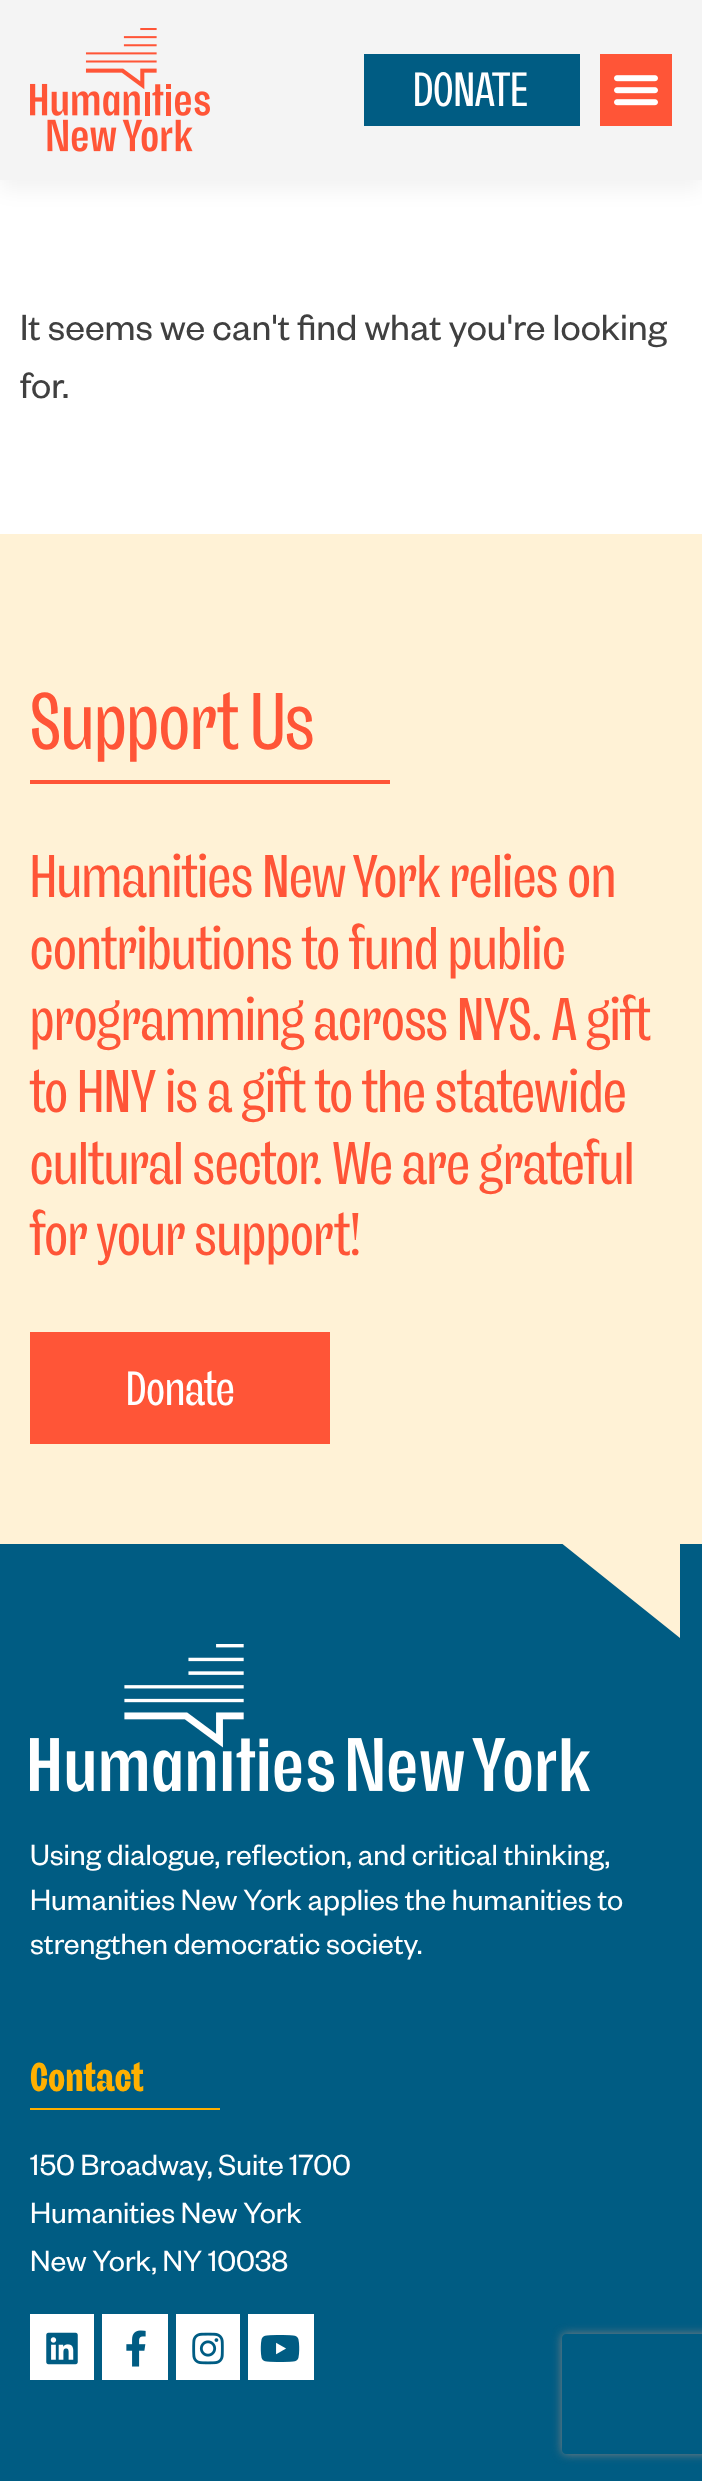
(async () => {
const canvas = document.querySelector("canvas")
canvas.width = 702
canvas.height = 2481
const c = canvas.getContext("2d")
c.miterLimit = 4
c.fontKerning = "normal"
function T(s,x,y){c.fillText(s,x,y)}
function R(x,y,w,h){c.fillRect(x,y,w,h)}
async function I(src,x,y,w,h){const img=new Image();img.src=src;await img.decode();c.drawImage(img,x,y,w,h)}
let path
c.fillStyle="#fff"
R(0,0,702,2481)
c.fillStyle="#0000000d"
c.filter="blur(10px)"
c.beginPath()
c.rect(0,10,702,180)
c.fill()
c.filter="none"
c.fillStyle="#f4f4f4"
R(0,0,702,180)
await I("1.png",30,28,180,124)
c.fillStyle="#005c83"
R(364,54,216,72)
c.font="48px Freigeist"
c.fillStyle="#fff"
T("DONATE",413,106)
c.fillStyle="#ff5537"
R(600,54,72,72)
await I("2.png",614,75,44,31)
c.font="40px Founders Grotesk"
c.fillStyle="#404040"
T("It seems we can't find what you're looking",20,340)
T("for.",20,398)
c.fillStyle="#fff2d6"
R(0,534,702,1010)
c.fillStyle="#ff5537"
R(30,780,360,4)
c.font="80px Freigeist"
T("Support Us",30,749)
c.font="60px Freigeist"
T("Humanities New York relies on",30,897)
T("contributions to fund public",30,969)
T("programming across NYS. A gift",30,1040)
T("to HNY is a gift to the statewide",30,1112)
T("cultural sector. We are grateful",30,1184)
T("for your support!",30,1255)
R(30,1332,300,112)
c.font="48px Freigeist"
c.fillStyle="#fff"
T("Donate",126,1405)
c.fillStyle="#005c83"
R(0,1544,702,937)
c.fillStyle="#fff2d6"
path = new Path2D("M560 1542l120 96v-96z")
c.fill(path)
await I("3.png",30,1644,560,148)
c.font="32px Founders Grotesk"
c.fillStyle="#fff"
T("Using dialogue, reflection, and critical thinking,",30,1865)
T("Humanities New York applies the humanities to",30,1910)
T("strengthen democratic society.",30,1954)
c.fillStyle="#ffb000"
R(30,2108,190,2)
c.font="bold 40px Freigeist"
T("Contact",30,2091)
c.font="32px Founders Grotesk"
c.fillStyle="#fff"
T("150 Broadway, Suite 1700",30,2175)
T("Humanities New York",30,2223)
T("New York, NY 10038",30,2271)
R(30,2314,64,66)
await I("4.png",46,2332,32,33)
R(102,2314,66,66)
await I("5.png",126,2330,20,37)
R(176,2314,64,66)
await I("6.png",192,2332,32,33)
R(248,2314,66,66)
await I("7.png",260,2335,40,27)
c.save()
path = new Path2D("M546 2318h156v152h-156zm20 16h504c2 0 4 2 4 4v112c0 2-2 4-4 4h-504c-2 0-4-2-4-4v-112c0-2 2-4 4-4z")
c.clip(path,"evenodd")
c.fillStyle="#808080"
c.filter="blur(5px)"
c.beginPath()
c.roundRect(562,2334,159,120,4)
c.fill()
c.filter="none"
c.restore()
})()
